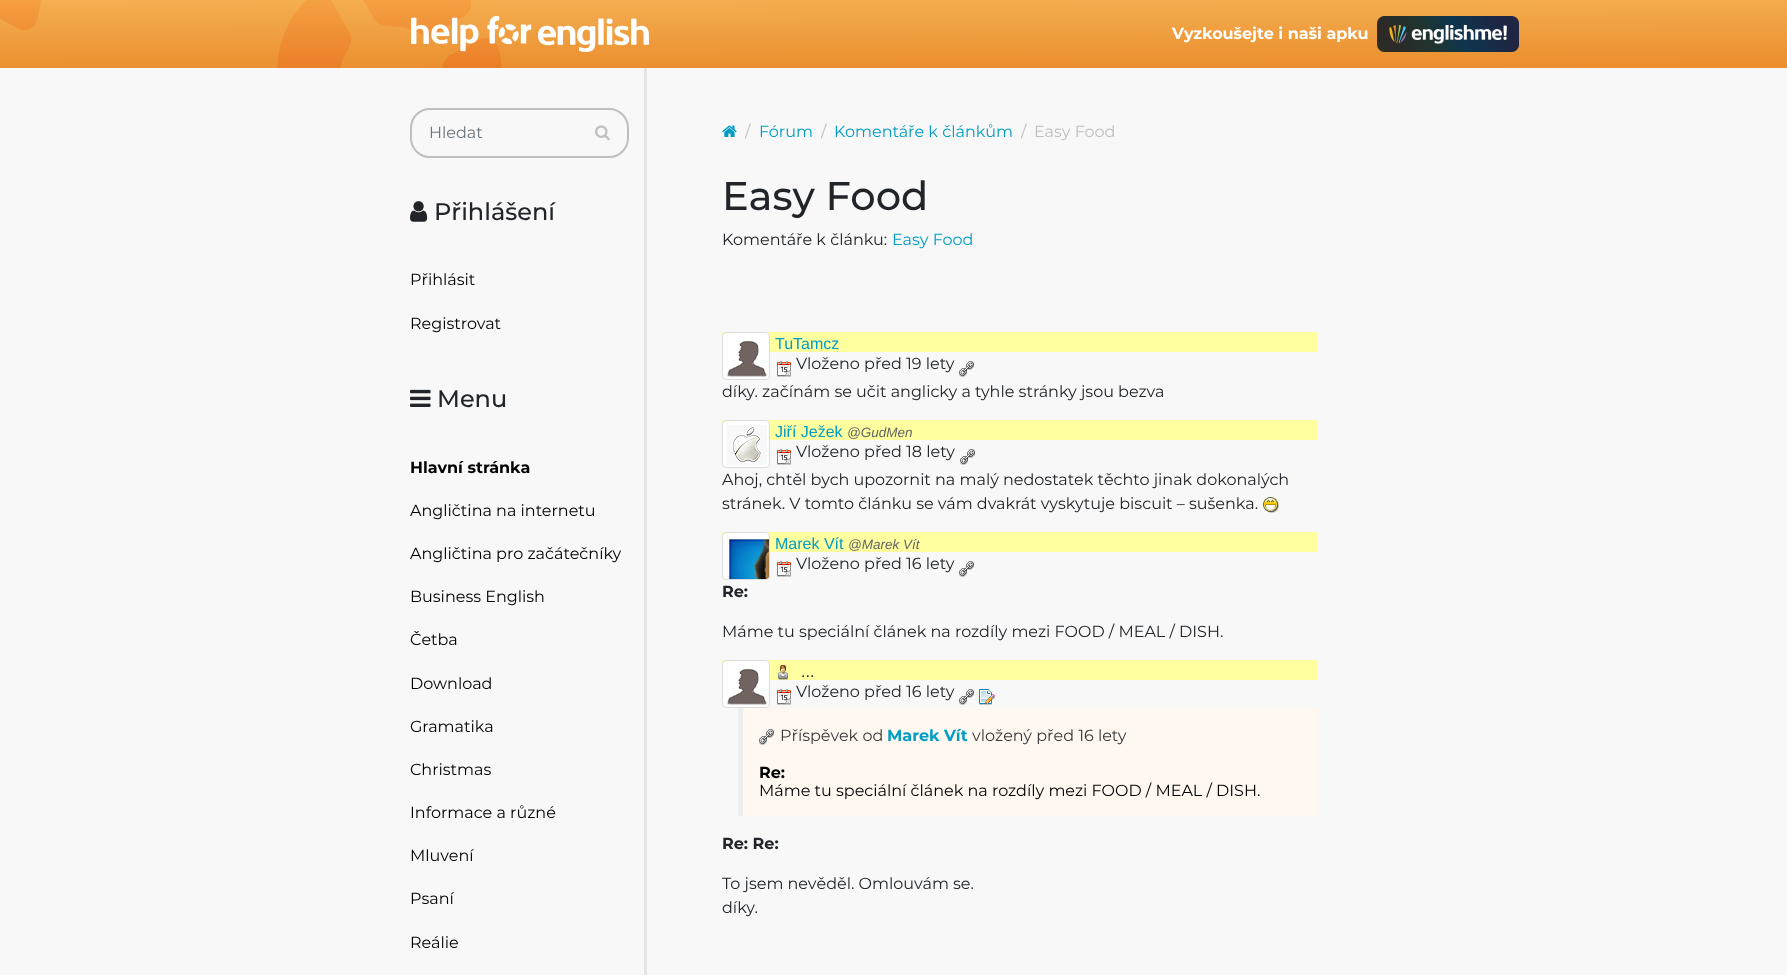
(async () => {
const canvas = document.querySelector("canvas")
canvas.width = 1787
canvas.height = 975
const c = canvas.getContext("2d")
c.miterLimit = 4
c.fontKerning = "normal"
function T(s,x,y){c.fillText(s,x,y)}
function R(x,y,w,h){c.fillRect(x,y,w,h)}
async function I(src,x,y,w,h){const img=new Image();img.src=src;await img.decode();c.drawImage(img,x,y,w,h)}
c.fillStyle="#f8f8f8"
R(0,0,1787,975)
await I("1.png",0,0,1787,68)
await I("2.png",411,16,238,36)
c.font="bold 16px Montserrat"
c.fillStyle="#fff"
T("Vyzkoušejte i naši apku",1172,39)
await I("3.png",1377,16,142,36)
c.beginPath()
c.roundRect(411,109,217,48,19)
c.strokeStyle="#bfbfbf"
c.lineWidth=2
c.stroke()
c.font="16px Montserrat"
c.fillStyle="#6c757d"
T("Hledat",429,138)
await I("4.png",595,125,15,16)
await I("5.png",410,201,18,21)
c.font="500 24px Montserrat"
c.fillStyle="#212529"
T("Přihlášení",434,220)
c.font="16px Montserrat"
c.fillStyle="#000"
T("Přihlásit",410,285)
T("Registrovat",410,329)
await I("6.png",410,389,21,18)
c.font="500 24px Montserrat"
c.fillStyle="#212529"
T("Menu",437,407)
c.font="bold 16px Montserrat"
c.fillStyle="#000"
T("Hlavní stránka",410,473)
c.font="16px Montserrat"
T("Angličtina na internetu",410,516)
T("Angličtina pro začátečníky",410,559)
T("Business English",410,602)
T("Četba",410,645)
T("Download",410,689)
T("Gramatika",410,732)
T("Christmas",410,775)
T("Informace a různé",410,818)
T("Mluvení",410,861)
T("Psaní",410,904)
T("Reálie",410,948)
c.fillStyle="#e4e4e4"
R(644,68,3,907)
await I("7.png",722,125,15,12)
c.fillStyle="#bebebe"
T("/",745,137)
c.fillStyle="#009dc4"
T("Fórum",759,137)
c.fillStyle="#bebebe"
T("/",821,137)
c.fillStyle="#009dc4"
T("Komentáře k článkům",834,137)
c.fillStyle="#bebebe"
T("/",1021,137)
T("Easy Food",1034,137)
c.font="500 40px Montserrat"
c.fillStyle="#212529"
T("Easy Food",722,210)
c.font="16px Montserrat"
T("Komentáře k článku:",722,245)
c.fillStyle="#009dc4"
T("Easy Food",892,245)
c.fillStyle="#ffffa0"
R(722,332,595,20)
c.fillStyle="#fff"
c.beginPath()
c.roundRect(722.5,332.5,47,47,3.5)
c.fill()
c.strokeStyle="#ddd"
c.lineWidth=1
c.stroke()
await I("8.png",727,340,40,37)
c.font="16px Liberation Sans"
c.fillStyle="#009dc4"
T("TuTamcz",775,349)
await I("9.png",777,361,14,16)
c.font="16px Montserrat"
c.fillStyle="#212529"
T("Vloženo před 19 lety",796,369)
await I("10.png",959,361,15,16)
T("díky. začínám se učit anglicky a tyhle stránky jsou bezva",722,397)
c.fillStyle="#ffffa0"
R(722,420,595,20)
c.fillStyle="#fff"
c.beginPath()
c.roundRect(722.5,420.5,47,47,3.5)
c.fill()
c.stroke()
await I("11.png",727,425,40,40)
c.font="16px Liberation Sans"
c.fillStyle="#009dc4"
T("Jiří Ježek",775,437)
c.font="italic 13.5px Liberation Sans"
c.fillStyle="#656565"
T("@GudMen",847,437)
await I("9.png",777,449,14,16)
c.font="16px Montserrat"
c.fillStyle="#212529"
T("Vloženo před 18 lety",796,457)
await I("10.png",960,449,15,16)
T("Ahoj, chtěl bych upozornit na malý nedostatek těchto jinak dokonalých",722,485)
T("stránek. V tomto článku se vám dvakrát vyskytuje biscuit – sušenka.",722,509)
await I("12.png",1263,497,16,16)
c.fillStyle="#ffffa0"
R(722,532,595,20)
c.fillStyle="#fff"
c.beginPath()
c.roundRect(722.5,532.5,47,47,3.5)
c.fill()
c.stroke()
await I("13.png",727,537,42,42)
c.font="16px Liberation Sans"
c.fillStyle="#009dc4"
T("Marek Vít",775,549)
c.font="italic 13.5px Liberation Sans"
c.fillStyle="#656565"
T("@Marek Vít",848,549)
await I("9.png",777,561,14,16)
c.font="16px Montserrat"
c.fillStyle="#212529"
T("Vloženo před 16 lety",796,569)
await I("10.png",959,561,15,16)
c.font="bold 16px Montserrat"
T("Re:",722,597)
c.font="16px Montserrat"
T("Máme tu speciální článek na rozdíly mezi FOOD / MEAL / DISH.",722,637)
c.fillStyle="#ffffa0"
R(722,660,595,20)
c.fillStyle="#fff"
c.beginPath()
c.roundRect(722.5,660.5,47,47,3.5)
c.fill()
c.stroke()
await I("8.png",727,668,40,37)
await I("14.png",778,665,10,15)
c.font="16px Liberation Sans"
c.fillStyle="#212529"
T("...",801,677)
await I("9.png",777,689,14,16)
c.font="16px Montserrat"
T("Vloženo před 16 lety",796,697)
await I("10.png",959,689,15,16)
await I("15.png",979,689,16,16)
c.fillStyle="#fff8f0"
R(743,708,574,108)
c.fillStyle="#eee"
R(738,708,5,108)
await I("16.png",759,729,15,16)
c.fillStyle="#3a3a3a"
T("Příspěvek od",780,741)
c.font="bold 16px Montserrat"
c.fillStyle="#009dc4"
T("Marek Vít",887,741)
c.font="16px Montserrat"
c.fillStyle="#3a3a3a"
T("vložený před 16 lety",972,741)
c.font="bold 16px Montserrat"
c.fillStyle="#000"
T("Re:",759,778)
c.font="16px Montserrat"
T("Máme tu speciální článek na rozdíly mezi FOOD / MEAL / DISH.",759,796)
c.font="bold 16px Montserrat"
c.fillStyle="#212529"
T("Re: Re:",722,849)
c.font="16px Montserrat"
T("To jsem nevěděl. Omlouvám se.",722,889)
T("díky.",722,913)
})()
